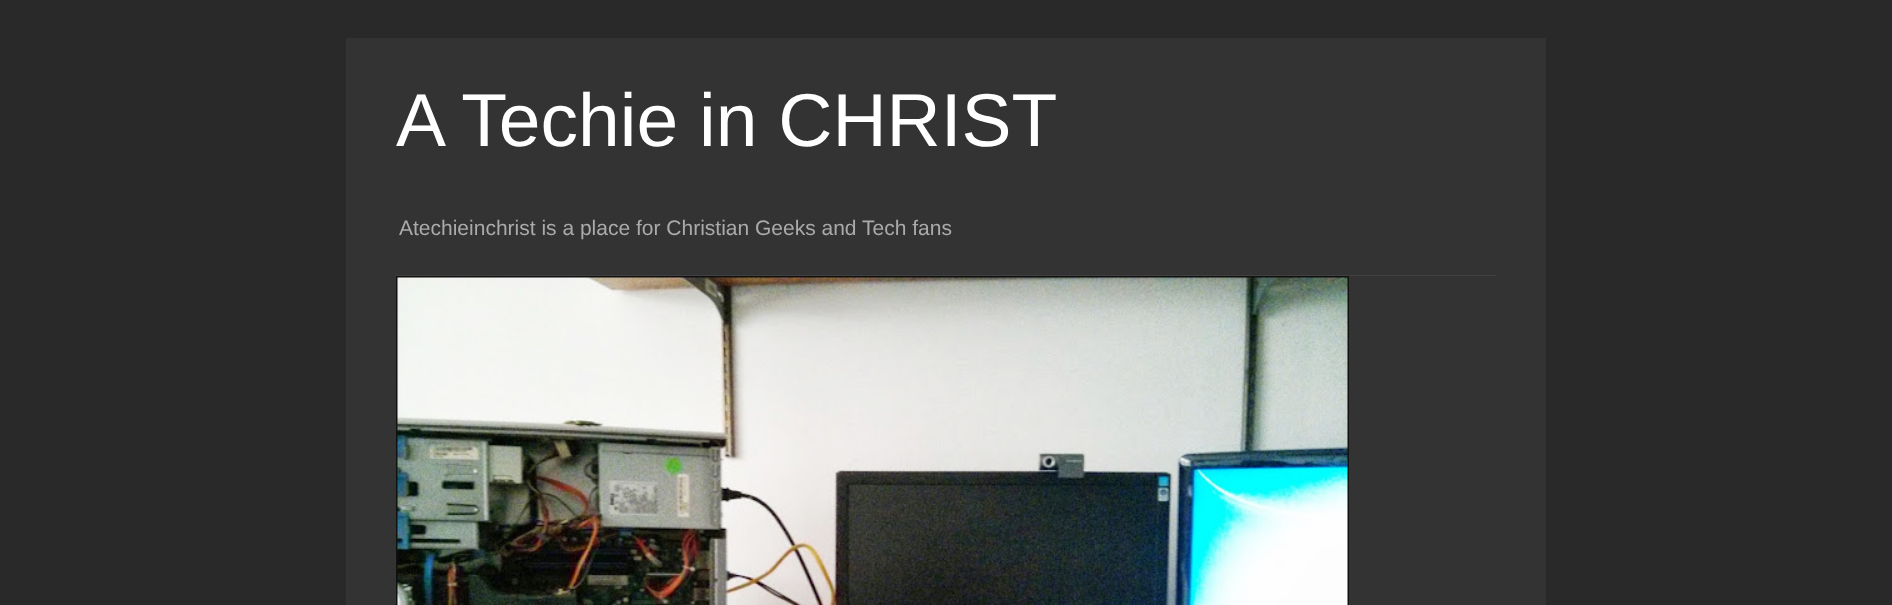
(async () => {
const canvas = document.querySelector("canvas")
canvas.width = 1892
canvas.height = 605
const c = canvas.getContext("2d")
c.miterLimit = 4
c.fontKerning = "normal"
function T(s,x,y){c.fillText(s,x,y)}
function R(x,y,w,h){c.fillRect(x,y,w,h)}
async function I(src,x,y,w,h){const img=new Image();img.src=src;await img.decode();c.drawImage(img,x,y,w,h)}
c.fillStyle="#292929"
R(0,0,1892,605)
c.fillStyle="#333"
R(346,38,1200,567)
c.font="75px Liberation Sans"
c.fillStyle="#fff"
T("A Techie in CHRIST",396,146)
c.font="21px Liberation Sans"
c.fillStyle="#aaa"
T("Atechieinchrist is a place for Christian Geeks and Tech fans",399,235)
c.fillStyle="#404040"
R(396,275,1100,1)
c.fillStyle="#111"
R(396,276,953,329)
await I("1.png",397,277,951,328)
})()
